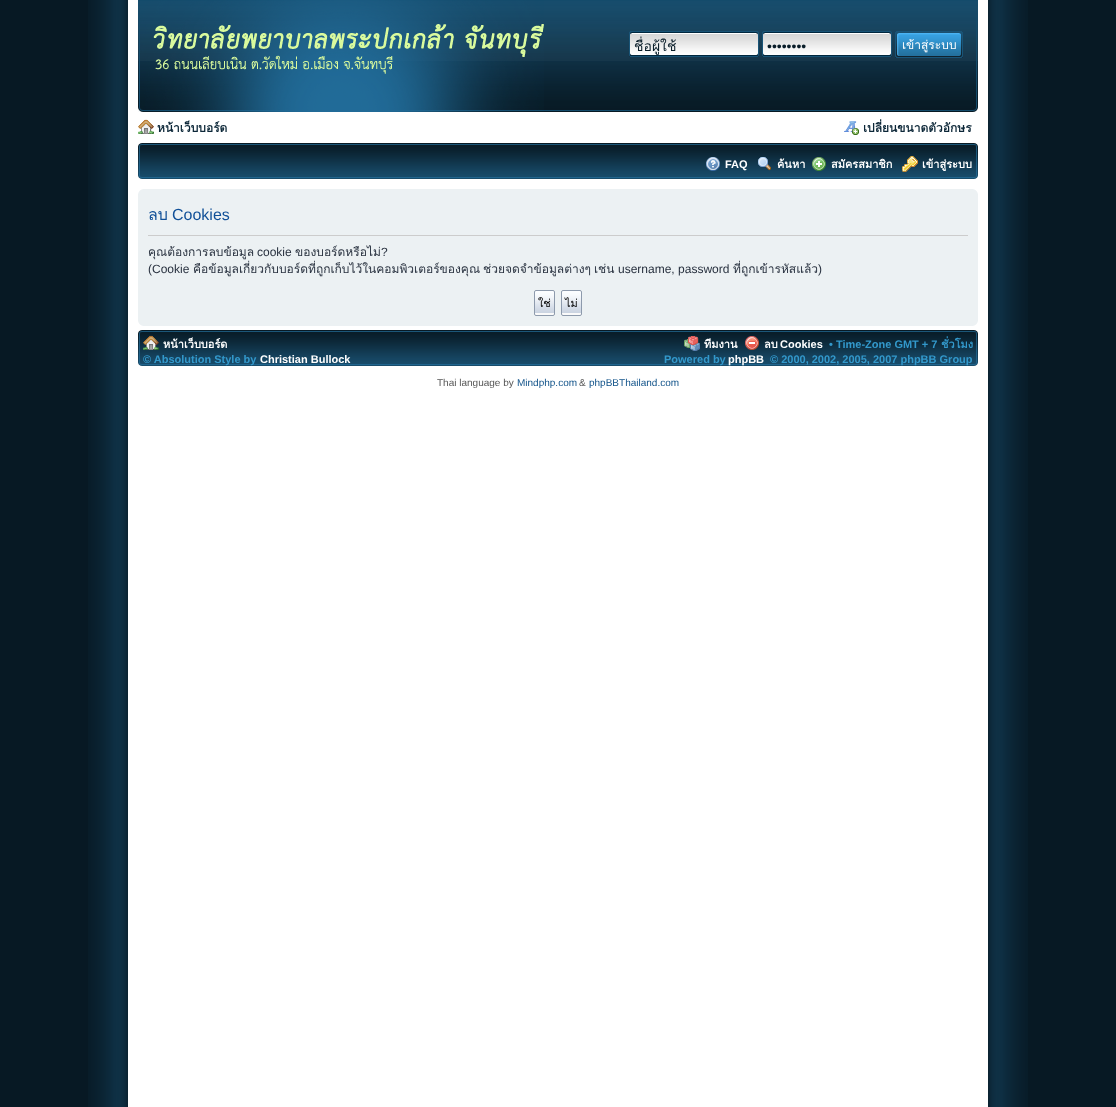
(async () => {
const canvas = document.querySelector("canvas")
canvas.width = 1116
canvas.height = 1107
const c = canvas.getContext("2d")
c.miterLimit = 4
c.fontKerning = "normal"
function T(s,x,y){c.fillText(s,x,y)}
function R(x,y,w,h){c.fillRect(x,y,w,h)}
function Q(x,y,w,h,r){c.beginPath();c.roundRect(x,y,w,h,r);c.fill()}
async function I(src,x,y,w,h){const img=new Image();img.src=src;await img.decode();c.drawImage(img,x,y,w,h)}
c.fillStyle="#071924"
R(0,0,1116,1107)
c.fillStyle="#fff"
R(128,0,860,1107)
await I("1.png",88,0,40,1107)
await I("2.png",138,0,840,112)
await I("3.png",138,15,5,97)
await I("4.png",138,0,406,112)
await I("5.png",973,15,5,97)
await I("6.png",629,31,130,26)
c.save()
c.beginPath()
c.rect(634,35,120,22)
c.clip()
c.font="14px Loma"
c.fillStyle="#091d29"
T("ชื่อผู้ใช้",634,51)
c.restore()
await I("6.png",762,31,130,26)
c.font="14px Liberation Sans"
c.fillStyle="#091d29"
T("••••••••",767,51)
await I("7.png",895,31,68,27)
c.font="12px Loma"
c.fillStyle="#fff"
T("เข้าสู่ระบบ",902,49)
await I("8.png",138,119,16,15)
c.font="bold 12px Loma"
c.fillStyle="#0c2738"
T("หน้าเว็บบอร์ด",157,132)
await I("9.png",844,121,15,14)
T("เปลี่ยนขนาดตัวอักษร",863,132)
await I("10.png",142,143,832,36)
await I("11.png",138,143,4,36)
await I("12.png",974,143,4,36)
await I("13.png",706,157,14,14)
c.font="bold 11px Liberation Sans"
c.fillStyle="#fff"
T("FAQ",725,168)
await I("14.png",758,157,13,14)
c.font="bold 11px Loma"
T("ค้นหา",777,168)
await I("15.png",812,157,14,14)
T("สมัครสมาชิก",831,168)
await I("16.png",902,156,16,16)
T("เข้าสู่ระบบ",922,168)
c.fillStyle="#ecf1f3"
R(138,189,840,137)
await I("17.png",138,189,5,5)
await I("18.png",973,189,5,5)
c.fillStyle="#ccc"
R(148,235,820,1)
c.font="16px Loma"
c.fillStyle="#115098"
T("ลบ",148,220)
c.font="16px Liberation Sans"
T("Cookies",172,220)
c.font="12px Loma"
c.fillStyle="#28313f"
T("คุณต้องการลบข้อมูล",148,256)
c.font="12px Liberation Sans"
T("cookie",257,256)
c.font="12px Loma"
T("ของบอร์ดหรือไม่",295,256)
c.font="12px Liberation Sans"
T("?",381,256)
T("(Cookie",148,273)
c.font="12px Loma"
T("คือข้อมูลเกี่ยวกับบอร์ดที่ถูกเก็บไว้ในคอมพิวเตอร์ของคุณ",193,273)
T("ช่วยจดจำข้อมูลต่างๆ",483,273)
T("เช่น",594,273)
c.font="12px Liberation Sans"
T("username, password",618,273)
c.font="12px Loma"
T("ที่ถูกเข้ารหัสแล้ว",733,273)
c.font="12px Liberation Sans"
T(")",818,273)
c.fillStyle="#fafafa"
Q(534,290,21,26,2)
await I("19.png",534,291,21,22)
c.beginPath()
c.roundRect(534.5,290.5,20,25,1.5)
c.strokeStyle="#8d9aac"
c.stroke()
c.font="11px Loma"
c.fillStyle="#000"
T("ใช่",538,307)
c.fillStyle="#fafafa"
Q(561,290,21,26,2)
await I("19.png",561,291,21,22)
c.beginPath()
c.roundRect(561.5,290.5,20,25,1.5)
c.stroke()
c.fillStyle="#000"
T("ไม่",565,307)
await I("20.png",138,321,5,5)
await I("21.png",973,321,5,5)
await I("10.png",142,330,832,36)
await I("11.png",138,330,4,36)
await I("22.png",143,335,16,15)
c.font="bold 11px Loma"
c.fillStyle="#fff"
T("หน้าเว็บบอร์ด",163,348)
c.font="bold 11px Liberation Sans"
c.fillStyle="#39c"
T("© Absolution Style by",143,363)
c.fillStyle="#fff"
T("Christian Bullock",260,363)
await I("12.png",974,330,4,36)
await I("23.png",684,336,16,15)
c.font="bold 11px Loma"
T("ทีมงาน",704,348)
await I("24.png",745,336,14,14)
T("ลบ",764,348)
c.font="bold 11px Liberation Sans"
T("Cookies",780,348)
c.fillStyle="#39c"
T("• Time-Zone GMT + 7",829,348)
c.font="bold 11px Loma"
T("ชั่วโมง",941,348)
c.font="bold 11px Liberation Sans"
T("Powered by",664,363)
c.fillStyle="#fff"
T("phpBB",728,363)
c.fillStyle="#39c"
T("© 2000, 2002, 2005, 2007 phpBB Group",770,363)
c.font="10px Liberation Sans"
c.fillStyle="#555"
T("Thai language by",437,386)
c.fillStyle="#105289"
T("Mindphp.com",517,386)
c.fillStyle="#555"
T("&",579,386)
c.fillStyle="#105289"
T("phpBBThailand.com",589,386)
await I("25.png",988,0,40,1107)
})()
